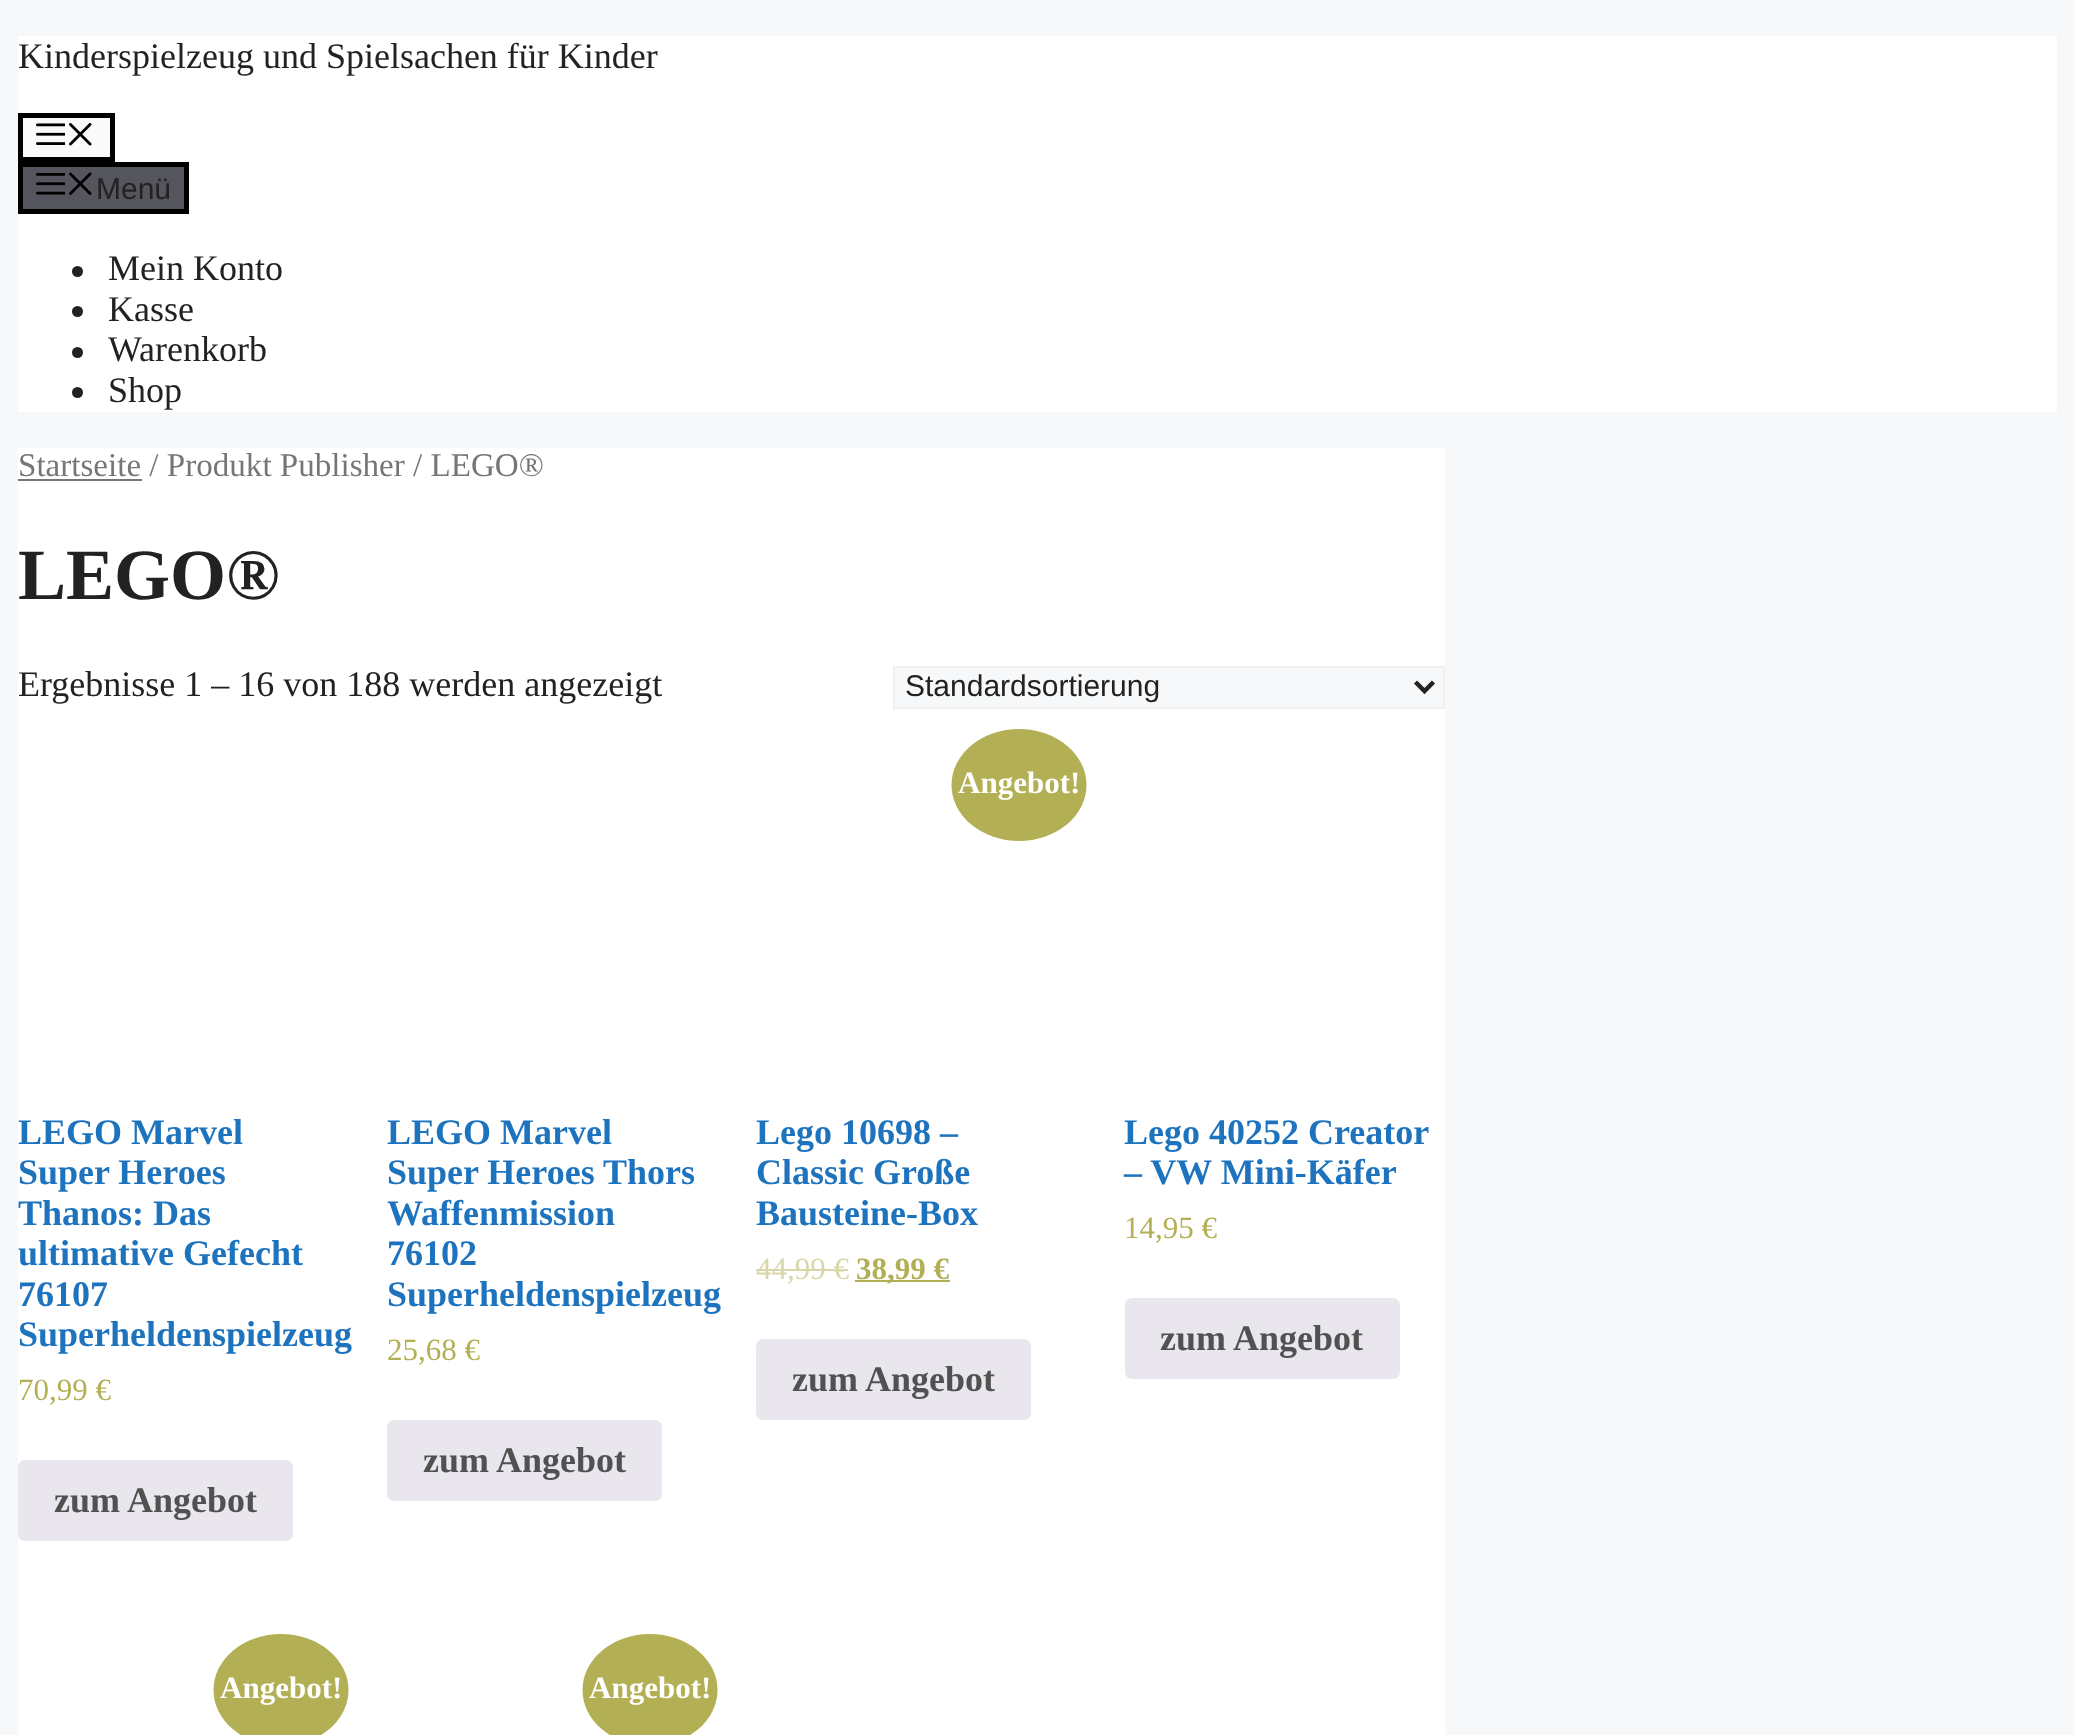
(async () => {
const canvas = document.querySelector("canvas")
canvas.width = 2074
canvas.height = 1735
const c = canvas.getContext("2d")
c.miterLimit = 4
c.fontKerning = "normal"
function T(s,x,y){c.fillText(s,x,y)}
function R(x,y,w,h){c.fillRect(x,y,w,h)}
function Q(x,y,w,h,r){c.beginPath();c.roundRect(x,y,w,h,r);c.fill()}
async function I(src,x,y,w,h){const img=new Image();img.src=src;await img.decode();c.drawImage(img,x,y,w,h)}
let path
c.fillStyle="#f7f8f9"
R(0,0,2074,1735)
c.fillStyle="#fff"
R(18,36,2039,376)
c.font="36px Liberation Serif"
c.fillStyle="#222"
T("Kinderspielzeug und Spielsachen für Kinder",18,68)
c.fillStyle="#fafafa"
c.beginPath()
c.rect(20.5,115.5,92,44)
c.fill()
c.strokeStyle="#000"
c.lineWidth=5
c.stroke()
await I("1.png",36,123,29,22)
await I("2.png",69,123,23,23)
c.fillStyle="#55555e"
c.beginPath()
c.rect(20.5,164.5,166,47)
c.fill()
c.stroke()
await I("3.png",36,173,29,22)
await I("4.png",69,172,23,23)
c.font="30px Liberation Sans"
c.fillStyle="#222"
T("Menü",96,199)
c.beginPath()
c.arc(77.5,271.5,5.5,0,7)
c.fill()
c.font="36px Liberation Serif"
T("Mein Konto",108,280)
c.beginPath()
c.arc(77.5,311.5,5.5,0,7)
c.fill()
T("Kasse",108,321)
c.beginPath()
c.arc(77.5,352.5,5.5,0,7)
c.fill()
T("Warenkorb",108,361)
c.beginPath()
c.arc(77.5,392.5,5.5,0,7)
c.fill()
T("Shop",108,402)
c.fillStyle="#fff"
R(18,448,1427,1287)
c.font="33.1px Liberation Serif"
c.fillStyle="#767676"
T("Startseite / Produkt Publisher / LEGO®",18,476)
R(18,479,124,2)
c.font="bold 72px Liberation Serif"
c.fillStyle="#222"
T("LEGO®",18,599)
c.font="36px Liberation Serif"
T("Ergebnisse 1 – 16 von 188 werden angezeigt",18,696)
c.fillStyle="#f7f8f9"
c.beginPath()
c.rect(894,667,550,41)
c.fill()
c.strokeStyle="#f0f0f0"
c.lineWidth=2
c.stroke()
path = new Path2D("M1415.5 682l9 9l9-9")
c.strokeStyle="#222"
c.lineWidth=4.5
c.stroke(path)
c.font="30px Liberation Sans"
c.fillStyle="#222"
T("Standardsortierung",905,696)
c.font="bold 36px Liberation Serif"
c.fillStyle="#1e73be"
T("LEGO Marvel",18,1144)
T("Super Heroes",18,1184)
T("Thanos: Das",18,1225)
T("ultimative Gefecht",18,1265)
T("76107",18,1306)
T("Superheldenspielzeug",18,1346)
c.font="31px Liberation Serif"
c.fillStyle="#b3af54"
T("70,99 €",18,1400)
c.fillStyle="#e9e6ed"
Q(18,1460,275,81,7)
c.font="bold 36px Liberation Serif"
c.fillStyle="#515151"
T("zum Angebot",54,1512)
c.fillStyle="#1e73be"
T("LEGO Marvel",387,1144)
T("Super Heroes Thors",387,1184)
T("Waffenmission",387,1225)
T("76102",387,1265)
T("Superheldenspielzeug",387,1306)
c.font="31px Liberation Serif"
c.fillStyle="#b3af54"
T("25,68 €",387,1360)
c.fillStyle="#e9e6ed"
Q(387,1420,275,81,7)
c.font="bold 36px Liberation Serif"
c.fillStyle="#515151"
T("zum Angebot",423,1472)
c.fillStyle="#b3af54"
c.beginPath()
c.ellipse(1019,785,67.5,56,0,0,7)
c.fill()
c.font="bold 31px Liberation Serif"
c.fillStyle="#fff"
T("Angebot!",958,793)
c.font="bold 36px Liberation Serif"
c.fillStyle="#1e73be"
T("Lego 10698 –",756,1144)
T("Classic Große",756,1184)
T("Bausteine-Box",756,1225)
c.font="31px Liberation Serif"
c.fillStyle="#d9d7aa"
T("44,99 €",756,1279)
R(756,1269,92,2)
c.fillStyle="#b3af54"
R(855,1280,95,2)
c.font="bold 31px Liberation Serif"
T("38,99 €",856,1279)
c.fillStyle="#e9e6ed"
Q(756,1339,275,81,7)
c.font="bold 36px Liberation Serif"
c.fillStyle="#515151"
T("zum Angebot",792,1391)
c.fillStyle="#1e73be"
T("Lego 40252 Creator",1124,1144)
T("– VW Mini-Käfer",1124,1184)
c.font="31px Liberation Serif"
c.fillStyle="#b3af54"
T("14,95 €",1124,1238)
c.fillStyle="#e9e6ed"
Q(1125,1298,275,81,7)
c.font="bold 36px Liberation Serif"
c.fillStyle="#515151"
T("zum Angebot",1160,1350)
c.fillStyle="#b3af54"
c.beginPath()
c.ellipse(281,1690,67.5,56,0,0,7)
c.fill()
c.font="bold 31px Liberation Serif"
c.fillStyle="#fff"
T("Angebot!",220,1698)
c.fillStyle="#b3af54"
c.beginPath()
c.ellipse(650,1690,67.5,56,0,0,7)
c.fill()
c.fillStyle="#fff"
T("Angebot!",589,1698)
})()
